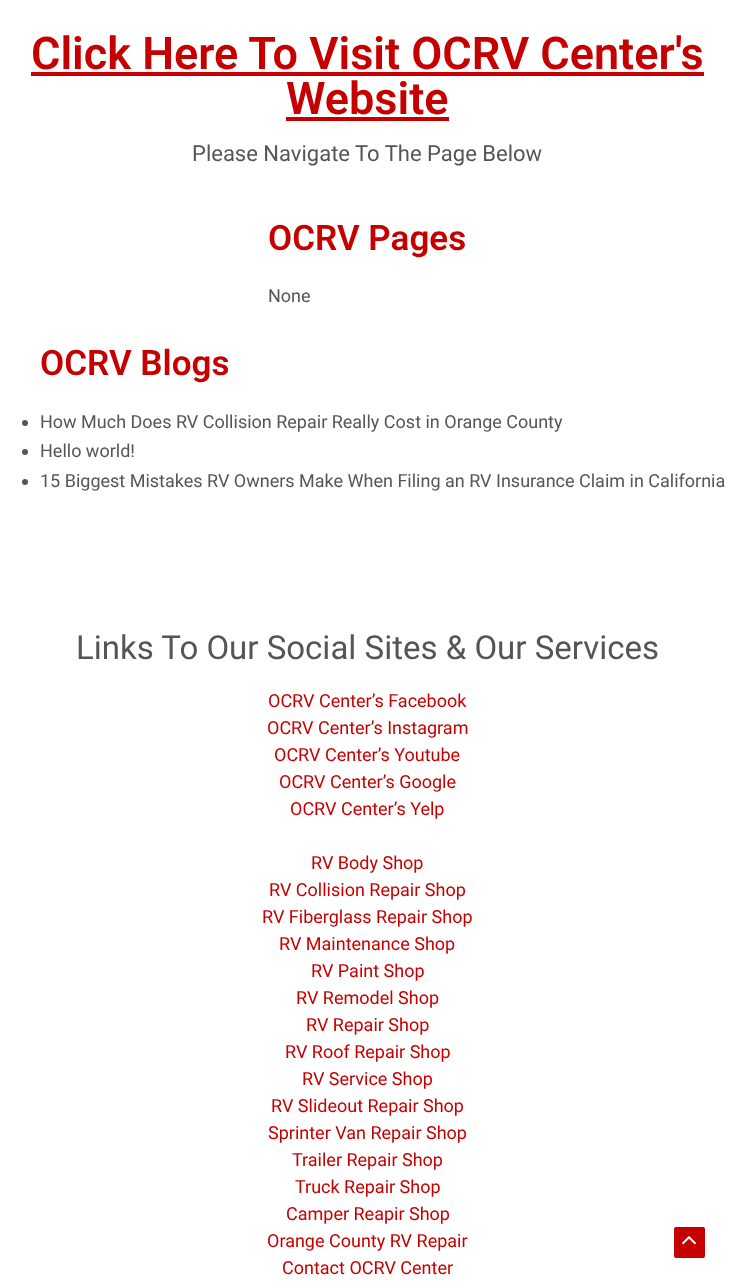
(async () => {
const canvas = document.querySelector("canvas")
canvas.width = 735
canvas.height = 1288
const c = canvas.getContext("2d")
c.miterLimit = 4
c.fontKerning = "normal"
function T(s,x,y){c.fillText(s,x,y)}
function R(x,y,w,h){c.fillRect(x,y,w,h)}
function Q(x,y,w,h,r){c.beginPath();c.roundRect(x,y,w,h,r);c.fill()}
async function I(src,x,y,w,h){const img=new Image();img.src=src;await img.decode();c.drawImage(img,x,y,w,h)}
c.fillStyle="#fff"
R(0,0,735,1288)
c.font="600 45px Roboto"
c.fillStyle="#c60000"
T("Click Here To Visit OCRV Center's",31,69)
R(31,72,673,4)
T("Website",286,114)
R(286,117,163,4)
c.font="22px Roboto"
c.fillStyle="#555"
T("Please Navigate To The Page Below",192,161)
c.font="600 35px Roboto"
c.fillStyle="#c60000"
T("OCRV Pages",268,250)
c.font="18px Roboto"
c.fillStyle="#555"
T("None",268,302)
c.font="600 35px Roboto"
c.fillStyle="#c60000"
T("OCRV Blogs",40,375)
c.fillStyle="#555"
c.beginPath()
c.arc(25,423,3,0,7)
c.fill()
c.font="18px Roboto"
T("How Much Does RV Collision Repair Really Cost in Orange County",40,428)
c.beginPath()
c.arc(25,452,3,0,7)
c.fill()
T("Hello world!",40,457)
c.beginPath()
c.arc(25,482,3,0,7)
c.fill()
T("15 Biggest Mistakes RV Owners Make When Filing an RV Insurance Claim in California",40,487)
c.font="33px Roboto"
T("Links To Our Social Sites & Our Services",76,659)
c.font="18px Roboto"
c.fillStyle="#c60000"
T("OCRV Center’s Facebook",268,707)
T("OCRV Center’s Instagram",267,734)
T("OCRV Center’s Youtube",274,761)
T("OCRV Center’s Google",279,788)
T("OCRV Center’s Yelp",290,815)
T("RV Body Shop",311,869)
T("RV Collision Repair Shop",269,896)
T("RV Fiberglass Repair Shop",262,923)
T("RV Maintenance Shop",279,950)
T("RV Paint Shop",311,977)
T("RV Remodel Shop",296,1004)
T("RV Repair Shop",306,1031)
T("RV Roof Repair Shop",285,1058)
T("RV Service Shop",302,1085)
T("RV Slideout Repair Shop",271,1112)
T("Sprinter Van Repair Shop",268,1139)
T("Trailer Repair Shop",292,1166)
T("Truck Repair Shop",295,1193)
T("Camper Reapir Shop",286,1220)
T("Orange County RV Repair",267,1247)
T("Contact OCRV Center",282,1274)
Q(674,1227,31,31,2)
await I("1.png",682,1236,15,9)
})()
